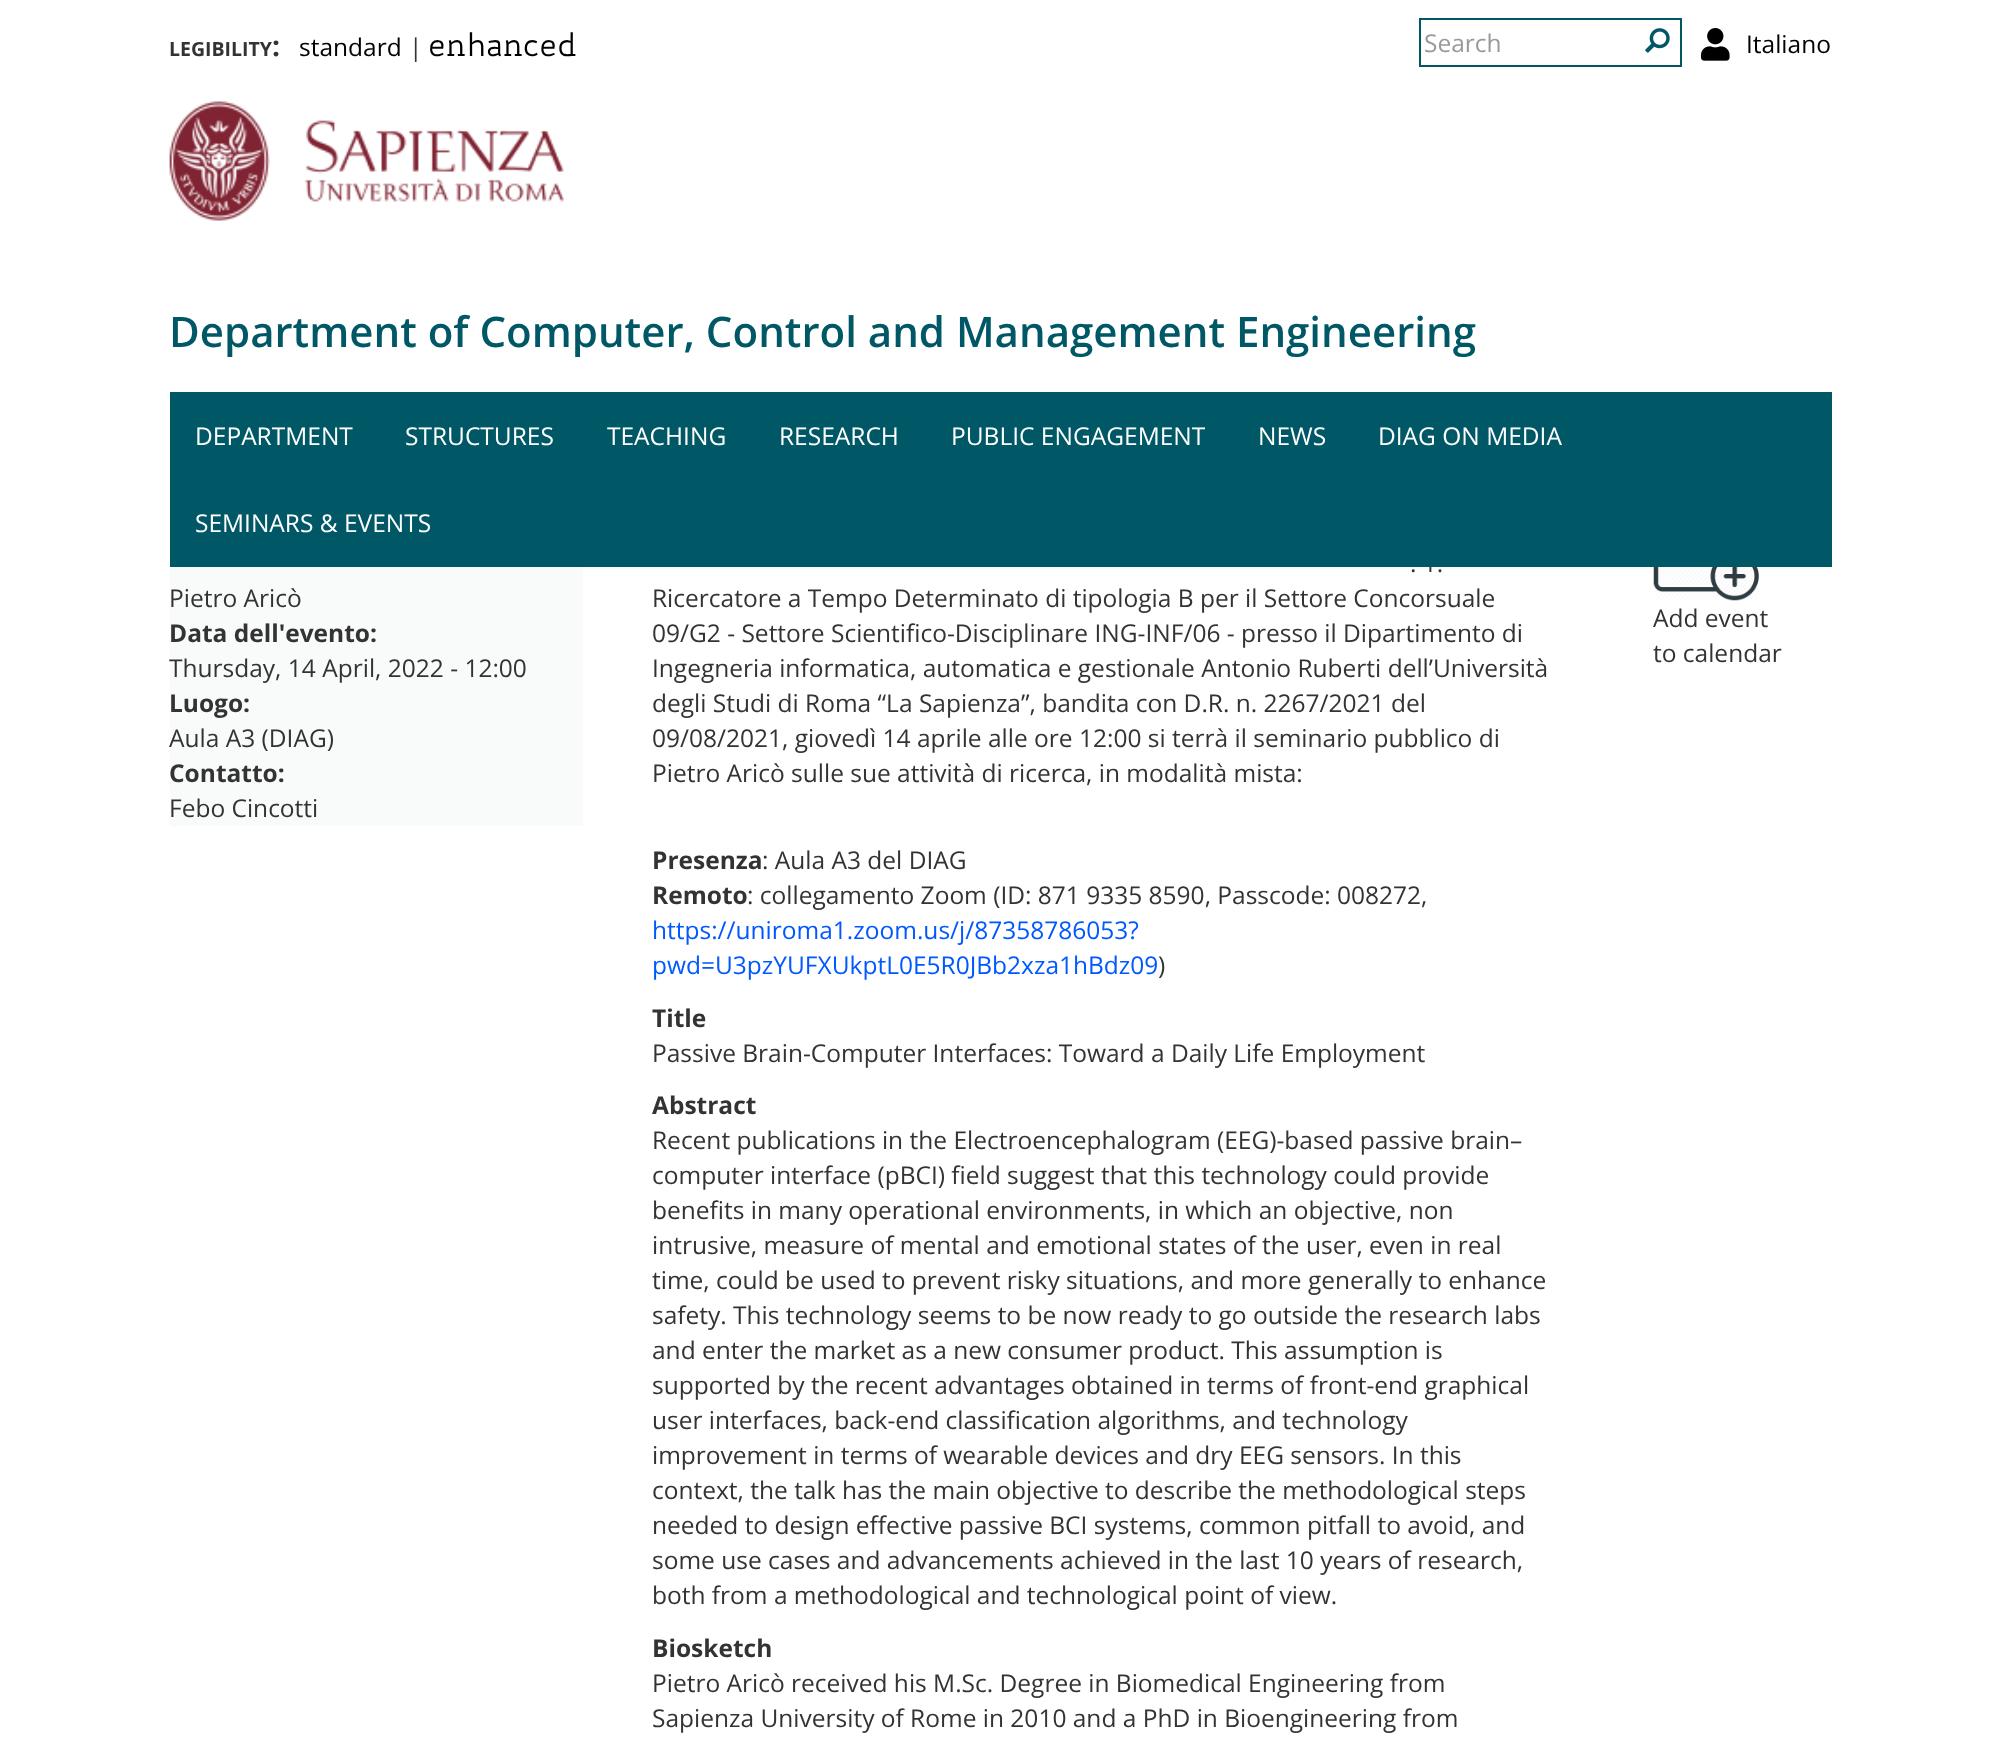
(async () => {
const canvas = document.querySelector("canvas")
canvas.width = 1999
canvas.height = 1743
const c = canvas.getContext("2d")
c.miterLimit = 4
c.fontKerning = "normal"
function T(s,x,y){c.fillText(s,x,y)}
function R(x,y,w,h){c.fillRect(x,y,w,h)}
async function I(src,x,y,w,h){const img=new Image();img.src=src;await img.decode();c.drawImage(img,x,y,w,h)}
c.fillStyle="#fff"
R(0,0,1999,1743)
c.font="24.5px Open Sans"
c.fillStyle="#333"
T(". 1.",1410,572)
c.fillStyle="#fff"
R(1425,554,7,13)
c.font="bold 19.5px Open Sans"
c.fillStyle="#333"
T("LEGIBILITY",169,56)
c.font="bold 28px Open Sans"
T(":",272,56)
c.font="24.5px Open Sans"
c.fillStyle="#000"
T("standard",299,56)
c.fillStyle="#333"
T("|",409,56)
c.font="32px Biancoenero"
c.fillStyle="#000"
T("enhanced",428,56)
c.fillStyle="#005866"
R(1419,18,263,2)
R(1419,65,221,2)
R(1419,18,2,49)
c.font="24.5px Open Sans"
c.fillStyle="#999"
T("Search",1424,52)
c.fillStyle="#005866"
R(1680,18,2,49)
R(1638,65,44,2)
await I("1.png",1645,28,25,25)
await I("2.png",1701,28,29,33)
c.fillStyle="#000"
T("Italiano",1746,53)
await I("3.png",169,101,395,120)
c.font="600 42px Open Sans"
c.fillStyle="#005866"
T("Department of Computer, Control and Management Engineering",169,347)
R(170,392,1662,175)
c.font="24.5px Open Sans"
c.fillStyle="#fff"
T("DEPARTMENT",195,445)
T("STRUCTURES",405,445)
T("TEACHING",607,445)
T("RESEARCH",779,445)
T("PUBLIC ENGAGEMENT",951,445)
T("NEWS",1258,445)
T("DIAG ON MEDIA",1378,445)
T("SEMINARS & EVENTS",195,532)
c.fillStyle="#f9fafa"
R(170,567,413,259)
c.fillStyle="#333"
T("Pietro Aricò",169,607)
c.font="bold 24.5px Open Sans"
T("Data dell'evento:",169,642)
c.font="24.5px Open Sans"
T("Thursday, 14 April, 2022 - 12:00",169,677)
c.font="bold 24.5px Open Sans"
T("Luogo:",169,712)
c.font="24.5px Open Sans"
T("Aula A3 (DIAG)",169,747)
c.font="bold 24.5px Open Sans"
T("Contatto:",169,782)
c.font="24.5px Open Sans"
T("Febo Cincotti",169,817)
T("Ricercatore a Tempo Determinato di tipologia B per il Settore Concorsuale",652,607)
T("09/G2 - Settore Scientifico-Disciplinare ING-INF/06 - presso il Dipartimento di",652,642)
T("Ingegneria informatica, automatica e gestionale Antonio Ruberti dell’Università",652,677)
T("degli Studi di Roma “La Sapienza”, bandita con D.R. n. 2267/2021 del",652,712)
T("09/08/2021, giovedì 14 aprile alle ore 12:00 si terrà il seminario pubblico di",652,747)
T("Pietro Aricò sulle sue attività di ricerca, in modalità mista:",652,782)
c.font="bold 24.5px Open Sans"
T("Presenza",652,869)
c.font="24.5px Open Sans"
T(": Aula A3 del DIAG",762,869)
c.font="bold 24.5px Open Sans"
T("Remoto",652,904)
c.font="24.5px Open Sans"
T(": collegamento Zoom (ID: 871 9335 8590, Passcode: 008272,",747,904)
c.fillStyle="#0058ff"
T("https://uniroma1.zoom.us/j/87358786053?",652,939)
T("pwd=U3pzYUFXUkptL0E5R0JBb2xza1hBdz09",652,974)
c.fillStyle="#333"
T(")",1158,974)
c.font="bold 24.5px Open Sans"
T("Title",652,1027)
c.font="24.5px Open Sans"
T("Passive Brain-Computer Interfaces: Toward a Daily Life Employment",652,1062)
c.font="bold 24.5px Open Sans"
T("Abstract",652,1114)
c.font="24.5px Open Sans"
T("Recent publications in the Electroencephalogram (EEG)-based passive brain–",652,1149)
T("computer interface (pBCI) field suggest that this technology could provide",652,1184)
T("benefits in many operational environments, in which an objective, non",652,1219)
T("intrusive, measure of mental and emotional states of the user, even in real",652,1254)
T("time, could be used to prevent risky situations, and more generally to enhance",652,1289)
T("safety. This technology seems to be now ready to go outside the research labs",652,1324)
T("and enter the market as a new consumer product. This assumption is",652,1359)
T("supported by the recent advantages obtained in terms of front-end graphical",652,1394)
T("user interfaces, back-end classification algorithms, and technology",652,1429)
T("improvement in terms of wearable devices and dry EEG sensors. In this",652,1464)
T("context, the talk has the main objective to describe the methodological steps",652,1499)
T("needed to design effective passive BCI systems, common pitfall to avoid, and",652,1534)
T("some use cases and advancements achieved in the last 10 years of research,",652,1569)
T("both from a methodological and technological point of view.",652,1604)
c.font="bold 24.5px Open Sans"
T("Biosketch",652,1657)
c.font="24.5px Open Sans"
T("Pietro Aricò received his M.Sc. Degree in Biomedical Engineering from",652,1692)
T("Sapienza University of Rome in 2010 and a PhD in Bioengineering from",652,1727)
await I("4.png",1653,567,106,34)
T("Add event",1653,627)
T("to calendar",1653,662)
})()
